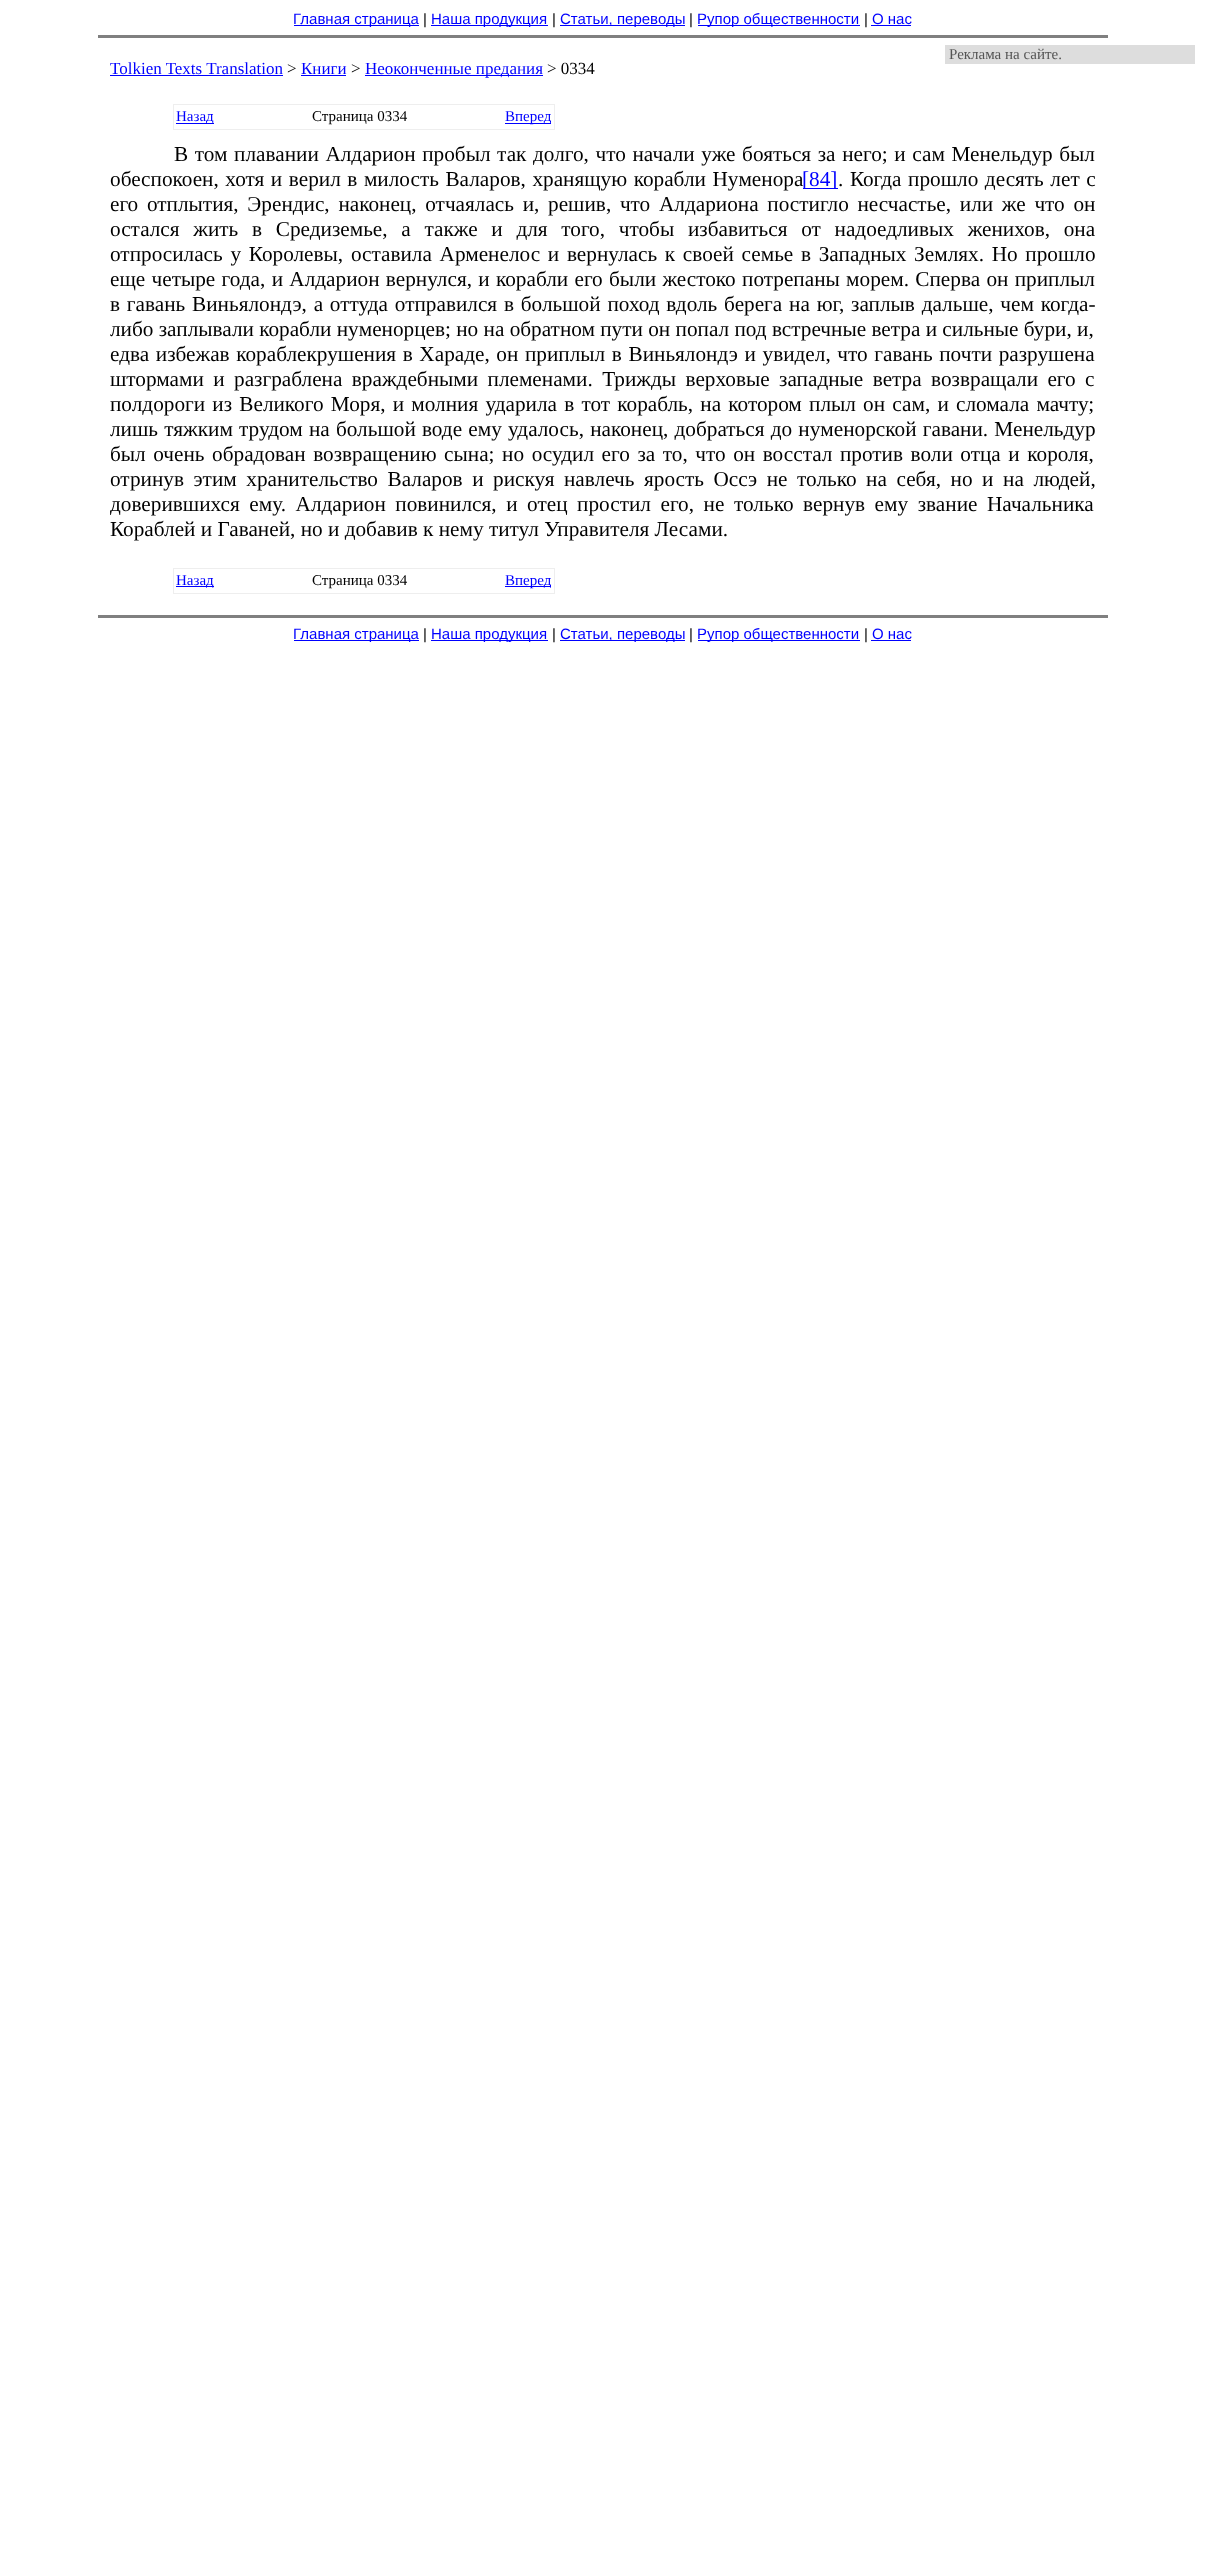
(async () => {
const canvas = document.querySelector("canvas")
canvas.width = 1205
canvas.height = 2559
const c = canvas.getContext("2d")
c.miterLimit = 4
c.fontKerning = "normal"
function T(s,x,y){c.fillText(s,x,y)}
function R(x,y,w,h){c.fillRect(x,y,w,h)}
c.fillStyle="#fff"
R(0,0,1205,2559)
c.fillStyle="#00f"
R(294,25,125,1)
c.font="15px Liberation Sans"
T("Главная страница",293,24)
c.fillStyle="#000"
T("|",423,24)
c.fillStyle="#00f"
R(431,25,117,1)
T("Наша продукция",431,24)
c.fillStyle="#000"
T("|",552,24)
c.fillStyle="#00f"
R(560,25,125,1)
T("Статьи, переводы",560,24)
c.fillStyle="#000"
T("|",689,24)
c.fillStyle="#00f"
R(698,25,162,1)
T("Рупор общественности",697,24)
c.fillStyle="#000"
T("|",864,24)
c.fillStyle="#00f"
T("О нас",872,24)
R(871,25,40,1)
c.fillStyle="#808080"
R(98,35,1010,3)
c.fillStyle="#ddd"
R(945,45,250,19)
c.font="15px Liberation Serif"
c.fillStyle="#555"
T("Реклама на сайте.",949,59)
c.font="17px Liberation Serif"
c.fillStyle="#00f"
T("Tolkien Texts Translation",110,74)
R(110,75,173,1)
c.fillStyle="#000"
T(">",287,74)
c.fillStyle="#00f"
T("Книги",301,74)
R(301,75,45,1)
c.fillStyle="#000"
T(">",351,74)
c.fillStyle="#00f"
R(365,75,178,1)
T("Неоконченные предания",365,74)
c.fillStyle="#000"
T("> 0334",547,74)
c.strokeStyle="#eee"
c.strokeRect(173.5,104.5,381,25)
c.fillStyle="#00f"
R(176,123,38,1)
c.font="15px Liberation Serif"
T("Назад",176,121)
c.fillStyle="#000"
T("Страница 0334",312,121)
c.fillStyle="#00f"
R(505,123,46,1)
T("Вперед",505,121)
c.wordSpacing="1.3px"
c.font="21.25px Liberation Serif"
c.fillStyle="#000"
T("В том плавании Алдарион пробыл так долго, что начали уже бояться за него; и сам Менельдур был",174,161)
c.wordSpacing="1.25px"
T("обеспокоен, хотя и верил в милость Валаров, хранящую корабли Нyменoра",110,186)
c.fillStyle="#00f"
R(803,188,35,1)
c.wordSpacing="0px"
T("[84]",802,186)
c.wordSpacing="1.25px"
c.fillStyle="#000"
T(". Когда прошло десять лет с",838,186)
c.wordSpacing="3.4px"
T("его отплытия, Эрендис, наконец, отчаялась и, решив, что Алдариона постигло несчастье, или же что он",110,211)
c.wordSpacing="8.4px"
T("остался жить в Средиземье, а также и для того, чтобы избавиться от надоедливых женихов, она",110,236)
c.wordSpacing="2.4px"
T("отпросилась у Королевы, оставила Арменелос и вернулась к своей семье в Западных Землях. Но прошло",110,261)
c.wordSpacing="1px"
T("еще четыре года, и Алдарион вернулся, и корабли его были жестоко потрепаны морем. Сперва он приплыл",110,286)
c.wordSpacing="1.5px"
T("в гавань Виньялондэ, а оттуда отправился в большой поход вдоль берега на юг, заплыв дальше, чем когда-",110,311)
c.wordSpacing="0px"
T("либо заплывали корабли нyменoрцев; но на обратном пути он попал под встречные ветра и сильные бури, и,",110,336)
c.wordSpacing="1.3px"
T("едва избежав кораблекрушения в Хараде, он приплыл в Виньялондэ и увидел, что гавань почти разрушена",110,361)
c.wordSpacing="4.1px"
T("штормами и разграблена враждебными племенами. Трижды верховые западные ветра возвращали его с",110,386)
c.wordSpacing="1.9px"
T("полдороги из Великого Моря, и молния ударила в тот корабль, на котором плыл он сам, и сломала мачту;",110,411)
c.wordSpacing="0.9px"
T("лишь тяжким трудом на большой воде ему удалось, наконец, добраться до нyменoрской гавани. Менельдур",110,436)
c.wordSpacing="2.25px"
T("был очень обрадован возвращению сына; но осудил его за то, что он восстал против воли отца и короля,",110,461)
c.wordSpacing="4.25px"
T("отринув этим хранительство Валаров и рискуя навлечь ярость Оссэ не только на себя, но и на людей,",110,486)
T("доверившихся ему. Алдарион повинился, и отец простил его, не только вернув ему звание Начальника",110,511)
c.wordSpacing="0px"
T("Кораблей и Гаваней, но и добавив к нему титул Управителя Лесами.",110,536)
c.strokeRect(173.5,568.5,381,25)
c.fillStyle="#00f"
R(176,586,38,1)
c.font="15px Liberation Serif"
T("Назад",176,585)
c.fillStyle="#000"
T("Страница 0334",312,585)
c.fillStyle="#00f"
R(505,586,46,1)
T("Вперед",505,585)
c.fillStyle="#808080"
R(98,615,1010,3)
c.fillStyle="#00f"
R(294,640,125,1)
c.font="15px Liberation Sans"
T("Главная страница",293,639)
c.fillStyle="#000"
T("|",423,639)
c.fillStyle="#00f"
R(431,640,117,1)
T("Наша продукция",431,639)
c.fillStyle="#000"
T("|",552,639)
c.fillStyle="#00f"
R(560,640,125,1)
T("Статьи, переводы",560,639)
c.fillStyle="#000"
T("|",689,639)
c.fillStyle="#00f"
R(698,640,162,1)
T("Рупор общественности",697,639)
c.fillStyle="#000"
T("|",864,639)
c.fillStyle="#00f"
T("О нас",872,639)
R(871,640,40,1)
})()
